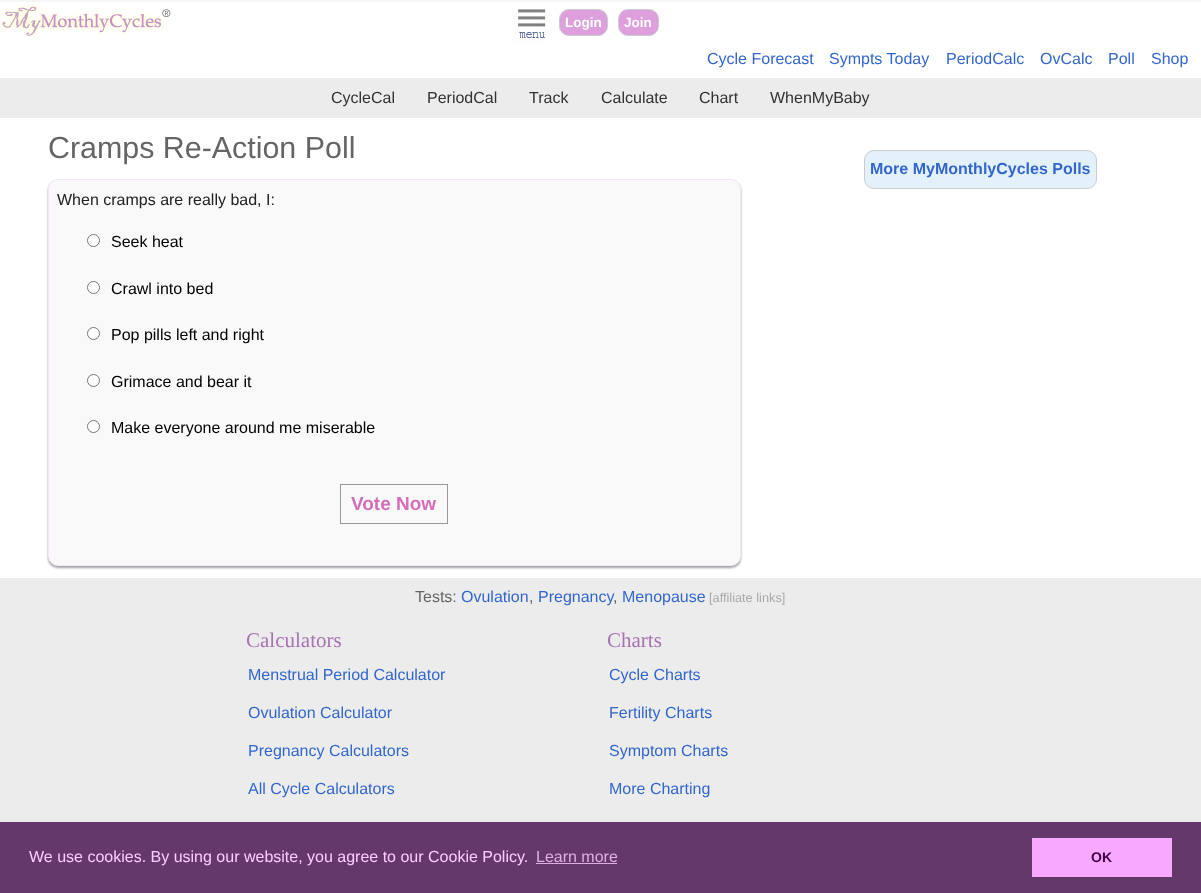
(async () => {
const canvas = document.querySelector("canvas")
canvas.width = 1201
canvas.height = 893
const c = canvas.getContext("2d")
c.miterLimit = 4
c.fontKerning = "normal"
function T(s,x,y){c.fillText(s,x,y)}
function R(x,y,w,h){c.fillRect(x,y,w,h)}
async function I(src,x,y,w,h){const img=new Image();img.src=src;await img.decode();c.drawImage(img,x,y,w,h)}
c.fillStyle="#f7f7f7"
R(0,0,1201,893)
c.fillStyle="#fff"
R(0,2,1201,576)
await I("1.png",0,4,171,33)
await I("2.png",514,9,32,35)
c.fillStyle="#dda0dd"
c.beginPath()
c.roundRect(559.5,9.5,48,26,9.5)
c.fill()
c.strokeStyle="#ccc"
c.stroke()
c.font="bold 13.5px Liberation Sans"
c.fillStyle="#fff"
T("Login",565,27)
c.fillStyle="#dda0dd"
c.beginPath()
c.roundRect(618.5,9.5,40,26,9.5)
c.fill()
c.stroke()
c.fillStyle="#fff"
T("Join",624,27)
c.font="16px Liberation Sans"
c.fillStyle="#36c"
T("Cycle Forecast",707,64)
T("Sympts Today",829,64)
T("PeriodCalc",946,64)
T("OvCalc",1040,64)
T("Poll",1108,64)
T("Shop",1151,64)
c.fillStyle="#ececec"
R(0,78,1201,40)
c.fillStyle="#323232"
T("CycleCal",331,103)
T("PeriodCal",427,103)
T("Track",529,103)
T("Calculate",601,103)
T("Chart",699,103)
T("WhenMyBaby",770,103)
c.font="30.4px Liberation Sans"
c.fillStyle="#656565"
T("Cramps Re-Action Poll",48,158)
c.fillStyle="#14141466"
c.filter="blur(1px)"
c.beginPath()
c.roundRect(48,181,693,387,10)
c.fill()
c.filter="none"
c.fillStyle="#f9f9f9"
c.beginPath()
c.roundRect(48.5,179.5,692,386,9.5)
c.fill()
c.strokeStyle="#f4e5f8"
c.stroke()
c.font="16px Liberation Sans"
c.fillStyle="#212121"
T("When cramps are really bad, I:",57,205)
c.fillStyle="#fff"
c.beginPath()
c.arc(93.5,240.5,6,0,7)
c.fill()
c.strokeStyle="#767676"
c.stroke()
c.fillStyle="#000"
T("Seek heat",111,247)
c.fillStyle="#fff"
c.beginPath()
c.arc(93.5,287.5,6,0,7)
c.fill()
c.stroke()
c.fillStyle="#000"
T("Crawl into bed",111,294)
c.fillStyle="#fff"
c.beginPath()
c.arc(93.5,333.5,6,0,7)
c.fill()
c.stroke()
c.fillStyle="#000"
T("Pop pills left and right",111,340)
c.fillStyle="#fff"
c.beginPath()
c.arc(93.5,380.5,6,0,7)
c.fill()
c.stroke()
c.fillStyle="#000"
T("Grimace and bear it",111,387)
c.fillStyle="#fff"
c.beginPath()
c.arc(93.5,426.5,6,0,7)
c.fill()
c.stroke()
c.fillStyle="#000"
T("Make everyone around me miserable",111,433)
c.strokeStyle="#999"
c.strokeRect(340.5,484.5,107,39)
c.font="bold 19px Liberation Sans"
c.fillStyle="#d56eb8"
T("Vote Now",351,510)
c.fillStyle="#e3f1fd"
c.beginPath()
c.roundRect(864.5,150.5,232,38,9.5)
c.fill()
c.strokeStyle="#ccc"
c.stroke()
c.font="bold 16px Liberation Sans"
c.fillStyle="#36c"
T("More MyMonthlyCycles Polls",870,174)
c.fillStyle="#ececec"
R(0,578,1201,244)
c.font="16px Liberation Sans"
c.fillStyle="#656565"
T("Tests:",415,602)
c.fillStyle="#36c"
T("Ovulation",461,602)
c.fillStyle="#656565"
T(",",529,602)
c.fillStyle="#36c"
T("Pregnancy",538,602)
c.fillStyle="#656565"
T(",",613,602)
c.fillStyle="#36c"
T("Menopause",622,602)
c.font="12.75px Liberation Sans"
c.fillStyle="#a9a9a9"
T("[affiliate links]",709,602)
c.font="21px Liberation Serif"
c.fillStyle="#a873b2"
T("Calculators",246,647)
c.font="16px Liberation Sans"
c.fillStyle="#36c"
T("Menstrual Period Calculator",248,680)
T("Ovulation Calculator",248,718)
T("Pregnancy Calculators",248,756)
T("All Cycle Calculators",248,794)
c.font="21px Liberation Serif"
c.fillStyle="#a873b2"
T("Charts",607,647)
c.font="16px Liberation Sans"
c.fillStyle="#36c"
T("Cycle Charts",609,680)
T("Fertility Charts",609,718)
T("Symptom Charts",609,756)
T("More Charting",609,794)
c.fillStyle="#64386b"
R(0,822,1201,71)
c.fillStyle="#ffcdfd"
T("We use cookies. By using our website, you agree to our Cookie Policy.",29,862)
c.fillStyle="#e0afe0"
T("Learn more",536,862)
R(536,863,81,1)
c.fillStyle="#f8a8ff"
R(1032,838,140,39)
c.font="bold 14px Liberation Sans"
c.fillStyle="#3f0045"
T("OK",1091,862)
})()
